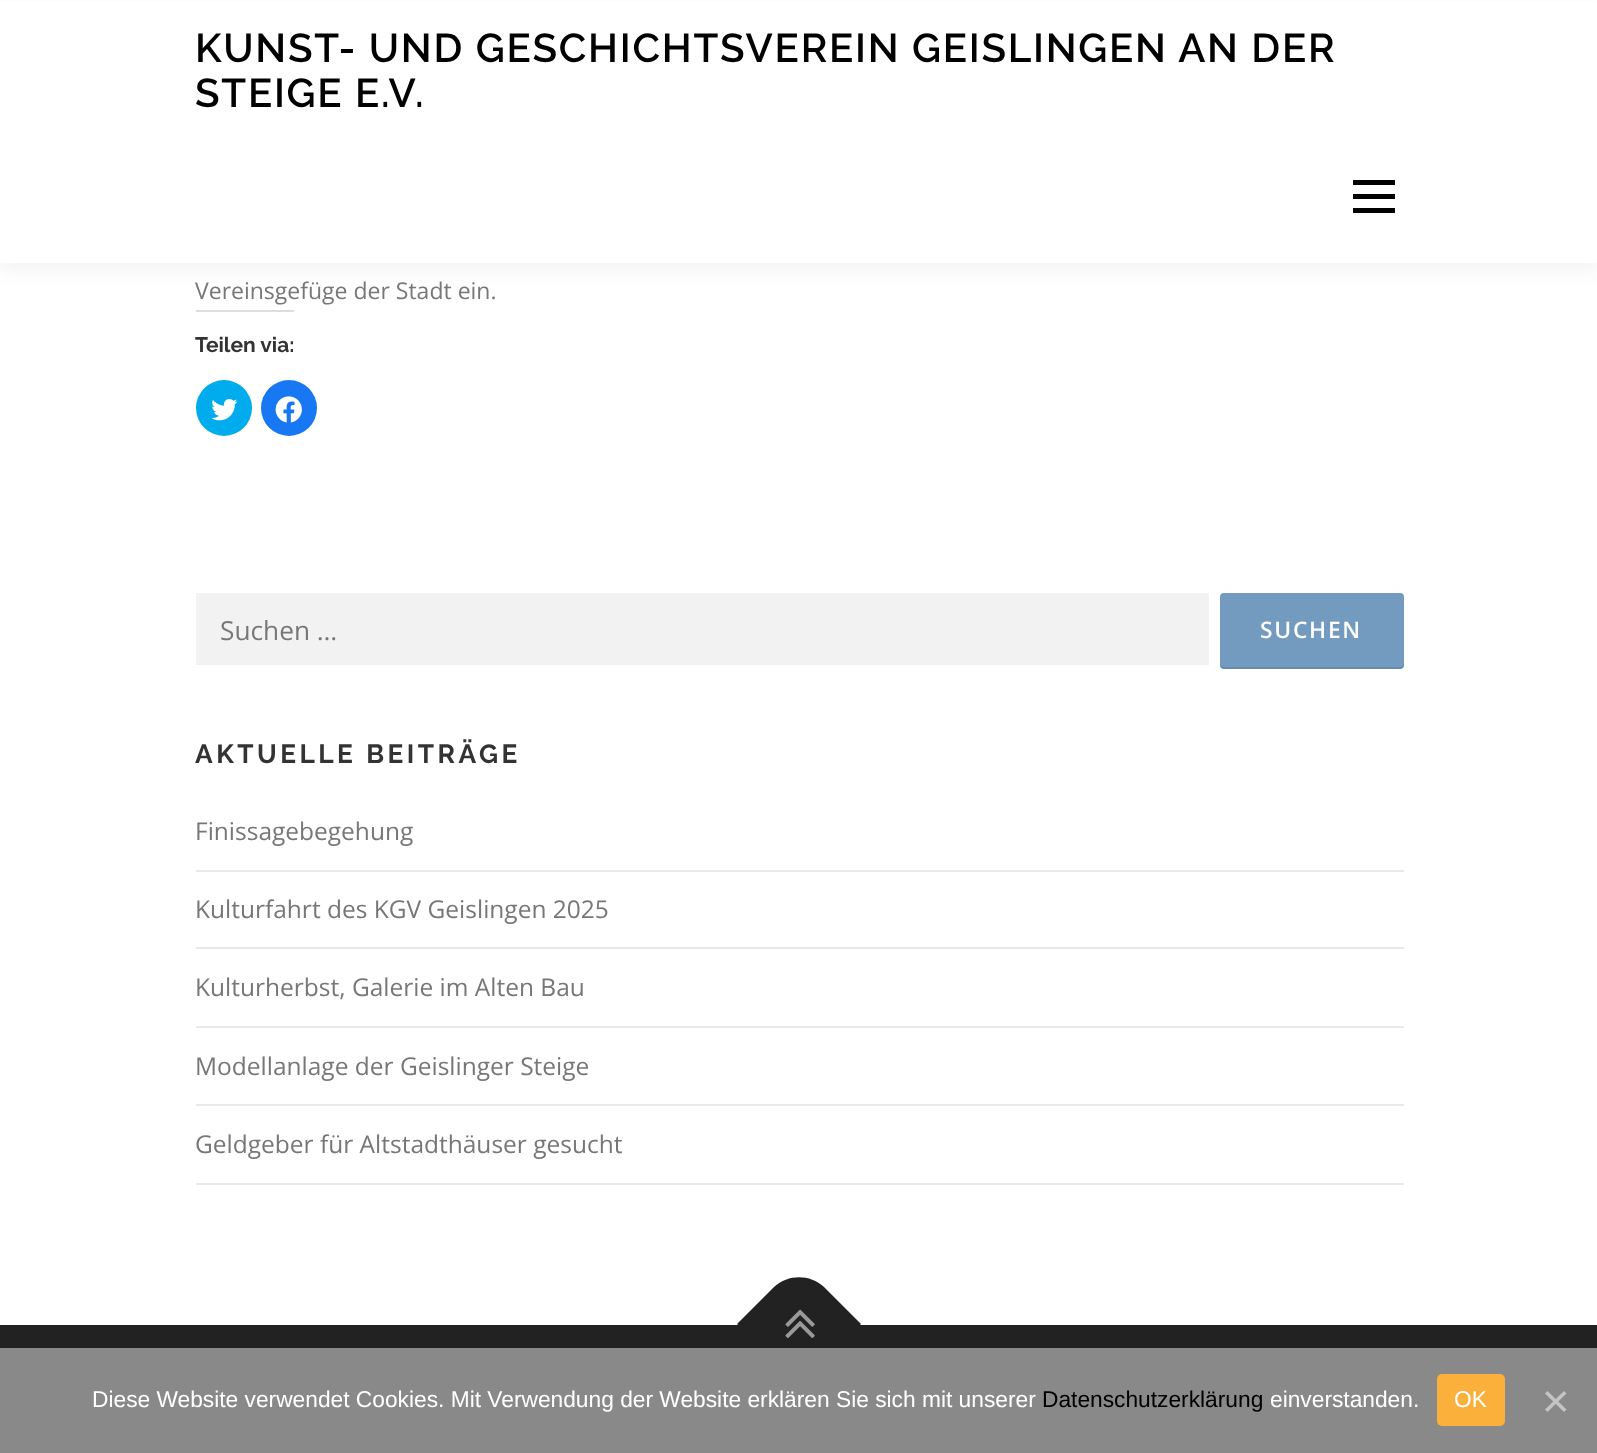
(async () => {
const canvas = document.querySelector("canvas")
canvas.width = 1597
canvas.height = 1453
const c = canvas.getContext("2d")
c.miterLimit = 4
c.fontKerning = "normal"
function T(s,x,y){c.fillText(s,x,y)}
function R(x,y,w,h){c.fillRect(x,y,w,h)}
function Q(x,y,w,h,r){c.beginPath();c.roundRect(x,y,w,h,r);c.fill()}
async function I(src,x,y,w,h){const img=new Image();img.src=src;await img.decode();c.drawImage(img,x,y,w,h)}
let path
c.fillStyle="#fff"
R(0,0,1597,1453)
c.fillStyle="#3232320f"
c.filter="blur(9px)"
c.beginPath()
c.rect(0,9,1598,262)
c.fill()
c.filter="none"
c.fillStyle="#fff"
R(0,2,1597,261)
c.letterSpacing="1.75px"
c.font="600 40.25px Raleway"
c.fillStyle="#000"
T("KUNST- UND GESCHICHTSVEREIN GEISLINGEN AN DER",195,62)
T("STEIGE E.V.",195,107)
R(1353,194,42,5)
R(1353,180,42,5)
R(1353,208,42,5)
c.letterSpacing="0px"
c.font="23px Open Sans"
c.fillStyle="#777"
T("Vereinsgefüge der Stadt ein.",195,299)
c.fillStyle="#ddd"
R(196,310,98,2)
c.font="bold 21px Raleway"
c.fillStyle="#333"
T("Teilen via:",195,352)
c.fillStyle="#00acee"
c.beginPath()
c.arc(224,408,28,0,7)
c.fill()
await I("1.png",211,399,27,22)
c.fillStyle="#1877f2"
c.beginPath()
c.arc(289,408,28,0,7)
c.fill()
await I("2.png",275,396,27,27)
c.fillStyle="#f2f2f2"
R(196,593,1013,72)
c.font="26.25px Open Sans"
c.fillStyle="#777"
T("Suchen …",220,640)
c.fillStyle="#729bbf"
Q(1220,593,184,76,4)
c.fillStyle="#0000001a"
path = new Path2D("M1220 663v2c0 2 2 4 4 4h176c2 0 4-2 4-4v-2c0 2-2 4-4 4h-177c-2 0-3-2-3-4z")
c.fill(path)
c.letterSpacing="1.75px"
c.font="600 22.75px Open Sans"
c.fillStyle="#fff"
T("SUCHEN",1260,638)
c.letterSpacing="3.5px"
c.font="bold 26.25px Raleway"
c.fillStyle="#333"
T("AKTUELLE BEITRÄGE",195,763)
c.fillStyle="#e9e9e9"
R(196,870,1208,2)
c.letterSpacing="0px"
c.font="24.5px Open Sans"
c.fillStyle="#777"
T("Finissagebegehung",195,840)
c.fillStyle="#e9e9e9"
R(196,947,1208,2)
c.fillStyle="#777"
T("Kulturfahrt des KGV Geislingen 2025",195,918)
c.fillStyle="#e9e9e9"
R(196,1026,1208,2)
c.fillStyle="#777"
T("Kulturherbst, Galerie im Alten Bau",195,996)
c.fillStyle="#e9e9e9"
R(196,1104,1208,2)
c.fillStyle="#777"
T("Modellanlage der Geislinger Steige",195,1075)
c.fillStyle="#e9e9e9"
R(196,1183,1208,2)
c.fillStyle="#777"
T("Geldgeber für Altstadthäuser gesucht",195,1153)
c.fillStyle="#222"
R(0,1325,1597,23)
path = new Path2D("M737 1324l37-37c14-13 36-13 50 0l37 37l-62 62z")
c.fill(path)
await I("3.png",785,1309,30,29)
c.fillStyle="#898989"
R(0,1348,1597,105)
c.font="22.75px Liberation Sans"
c.fillStyle="#fff"
T("Diese Website verwendet Cookies. Mit Verwendung der Website erklären Sie sich mit unserer",92,1407)
c.fillStyle="#000"
T("Datenschutzerklärung",1042,1407)
c.fillStyle="#fff"
T("einverstanden.",1270,1407)
c.fillStyle="#fbb03b"
Q(1437,1374,68,52,5)
c.fillStyle="#fff"
T("OK",1454,1407)
c.fillStyle="#c4c4c4"
path = new Path2D("M1564 1391l2.5 2.5l-19 18.5l-2.5-2.5z")
c.fill(path)
path = new Path2D("M1545 1393.5l2.5-2.5l19 18.5l-2.5 2.5z")
c.fill(path)
})()
